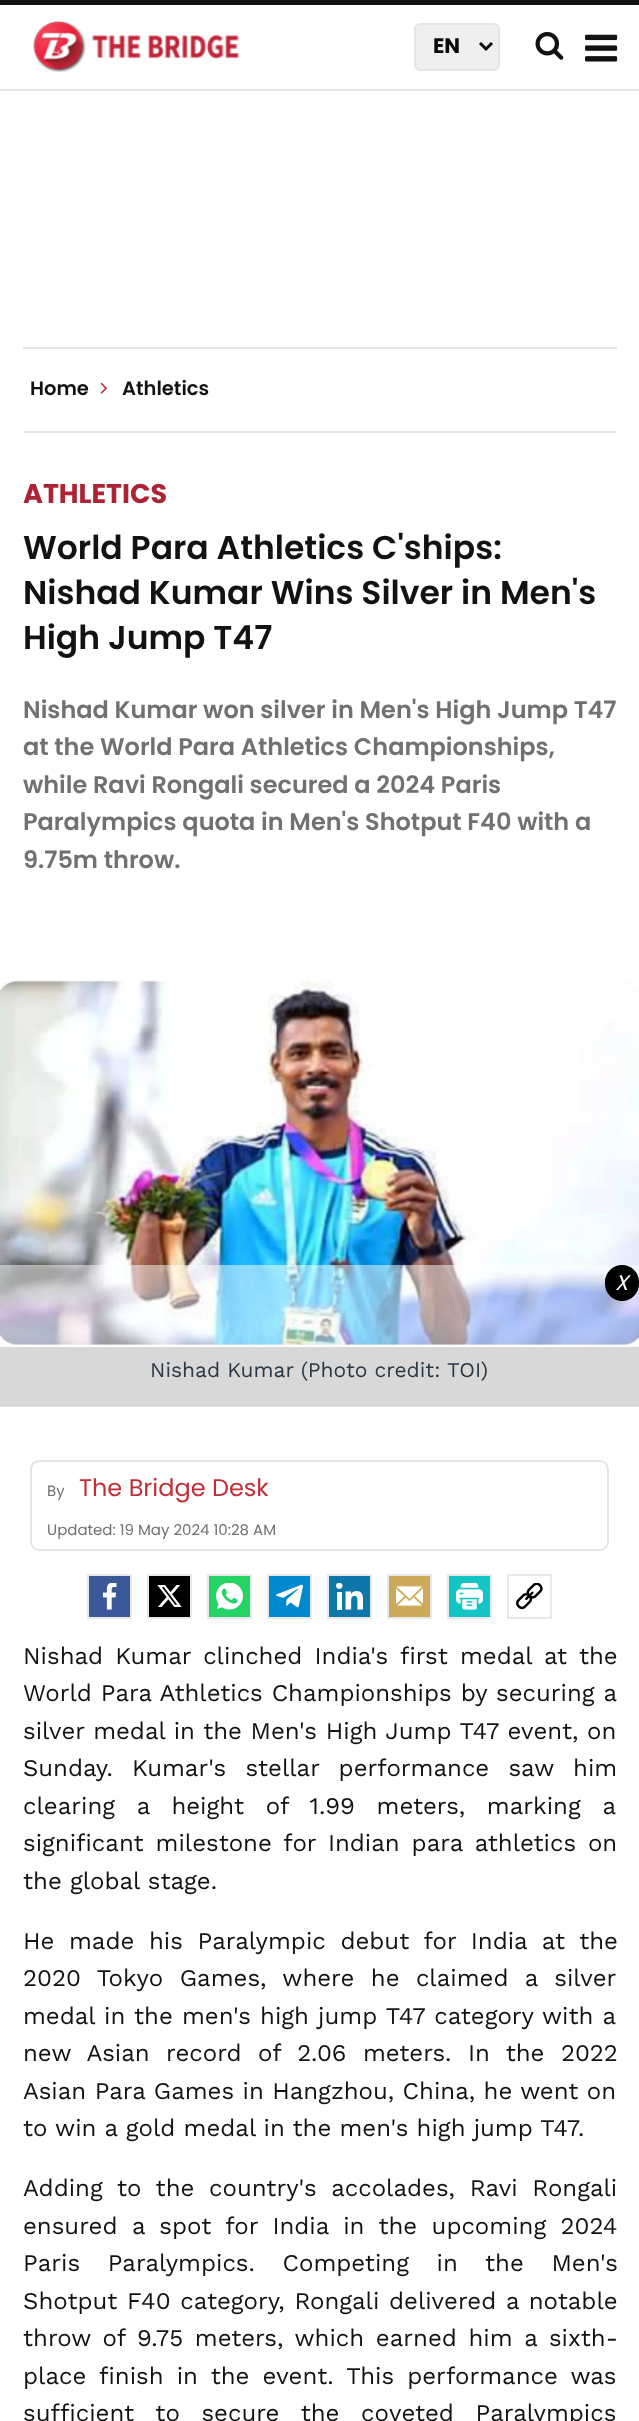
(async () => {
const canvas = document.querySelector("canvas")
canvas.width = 639
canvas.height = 2421
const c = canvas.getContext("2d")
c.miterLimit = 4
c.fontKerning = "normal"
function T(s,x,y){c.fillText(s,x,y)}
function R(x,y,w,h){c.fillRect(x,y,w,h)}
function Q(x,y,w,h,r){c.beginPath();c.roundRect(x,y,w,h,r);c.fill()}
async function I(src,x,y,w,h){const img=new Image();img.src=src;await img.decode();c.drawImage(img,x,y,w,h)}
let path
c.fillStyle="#fff"
R(0,0,639,2421)
c.fillStyle="#121212"
R(0,0,639,5)
c.fillStyle="#e5e5e5"
R(0,89,639,2)
await I("1.png",33,20,207,52)
c.fillStyle="#efefef"
c.beginPath()
c.roundRect(415,24,84,46,5)
c.fill()
c.strokeStyle="#e5e5e5"
c.lineWidth=2
c.stroke()
path = new Path2D("M480 43l6 6l6-6")
c.strokeStyle="#0a0909"
c.lineWidth=3
c.stroke(path)
c.font="bold 21px Poppins"
c.fillStyle="#0a0909"
T("EN",433,53)
await I("2.png",535,31,29,29)
await I("3.png",585,34,33,28)
c.fillStyle="#e5e5e5"
R(23,347,594,2)
R(23,431,594,2)
c.font="600 19.5px Poppins"
c.fillStyle="#121212"
T("Home",30,395)
await I("4.png",100,382,7,12)
T("Athletics",122,395)
c.font="bold 27px Poppins"
c.fillStyle="#ac2333"
T("ATHLETICS",23,503)
c.font="600 33px Poppins"
c.fillStyle="#121212"
T("World Para Athletics C'ships:",23,559)
T("Nishad Kumar Wins Silver in Men's",23,604)
T("High Jump T47",23,649)
c.font="600 24px Poppins"
c.fillStyle="#717171"
T("Nishad Kumar won silver in Men's High Jump T47",23,718)
T("at the World Para Athletics Championships,",23,755)
T("while Ravi Rongali secured a 2024 Paris",23,793)
T("Paralympics quota in Men's Shotput F40 with a",23,830)
T("9.75m throw.",23,868)
await I("5.png",0,979,639,368)
c.fillStyle="#ffffff80"
R(0,1265,639,82)
c.fillStyle="#000"
Q(605,1265,34,36,17)
c.font="italic 21px Poppins"
c.fillStyle="#fff"
T("X",615,1290)
c.fillStyle="#d8d8d8"
R(0,1347,639,60)
c.font="21px Work Sans"
c.fillStyle="#2a3744"
T("Nishad Kumar (Photo credit: TOI)",150,1377)
c.beginPath()
c.roundRect(31,1461,577,89,8)
c.strokeStyle="#e5e5e5"
c.lineWidth=2
c.stroke()
c.font="15px Poppins"
c.fillStyle="#717171"
T("By",47,1496)
c.font="24px Poppins"
c.fillStyle="#c22d38"
T("The Bridge Desk",79,1496)
c.font="15px Poppins"
c.fillStyle="#717171"
T("Updated: 19 May 2024 10:28 AM",47,1535)
c.fillStyle="#3b5998"
c.beginPath()
c.rect(88,1575,43,43)
c.fill()
c.strokeStyle="#e7e8e9"
c.stroke()
await I("6.png",102,1583,15,27)
c.fillStyle="#000"
c.beginPath()
c.rect(148,1575,43,43)
c.fill()
c.stroke()
await I("7.png",157,1585,25,22)
c.fillStyle="#25d366"
c.beginPath()
c.rect(208,1575,43,43)
c.fill()
c.stroke()
await I("8.png",216,1583,27,27)
c.fillStyle="#08c"
c.beginPath()
c.rect(268,1575,43,43)
c.fill()
c.stroke()
await I("9.png",276,1584,27,24)
c.fillStyle="#0e76a8"
c.beginPath()
c.rect(328,1575,43,43)
c.fill()
c.stroke()
await I("10.png",336,1583,27,27)
c.fillStyle="#ccaa5a"
c.beginPath()
c.rect(388,1575,43,43)
c.fill()
c.stroke()
await I("11.png",396,1586,27,20)
c.fillStyle="#13c5c5"
c.beginPath()
c.rect(448,1575,43,43)
c.fill()
c.stroke()
await I("12.png",456,1583,27,27)
c.strokeRect(508,1575,43,43)
await I("13.png",516,1583,27,27)
c.wordSpacing="4px"
c.font="24px Work Sans"
c.fillStyle="#121212"
T("Nishad Kumar clinched India's first medal at the",23,1664)
c.wordSpacing="0.75px"
T("World Para Athletics Championships by securing a",23,1701)
c.wordSpacing="0.5px"
T("silver medal in the Men's High Jump T47 event, on",23,1739)
c.wordSpacing="11px"
T("Sunday. Kumar's stellar performance saw him",23,1776)
c.wordSpacing="13.5px"
T("clearing a height of 1.99 meters, marking a",23,1814)
c.wordSpacing="3.75px"
T("significant milestone for Indian para athletics on",23,1851)
c.wordSpacing="0px"
T("the global stage.",23,1889)
c.wordSpacing="6.5px"
T("He made his Paralympic debut for India at the",23,1949)
c.wordSpacing="8.25px"
T("2020 Tokyo Games, where he claimed a silver",23,1986)
c.wordSpacing="1px"
T("medal in the men's high jump T47 category with a",23,2024)
c.wordSpacing="8.25px"
T("new Asian record of 2.06 meters. In the 2022",23,2061)
c.wordSpacing="0.25px"
T("Asian Para Games in Hangzhou, China, he went on",23,2099)
c.wordSpacing="0px"
T("to win a gold medal in the men's high jump T47.",23,2136)
c.wordSpacing="6.5px"
T("Adding to the country's accolades, Ravi Rongali",23,2196)
c.wordSpacing="6.25px"
T("ensured a spot for India in the upcoming 2024",23,2234)
c.wordSpacing="19.5px"
T("Paris Paralympics. Competing in the Men's",23,2271)
c.wordSpacing="1.5px"
T("Shotput F40 category, Rongali delivered a notable",23,2309)
c.wordSpacing="3.5px"
T("throw of 9.75 meters, which earned him a sixth-",23,2346)
c.wordSpacing="5px"
T("place finish in the event. This performance was",23,2384)
c.wordSpacing="13.5px"
T("sufficient to secure the coveted Paralympics",23,2421)
})()
